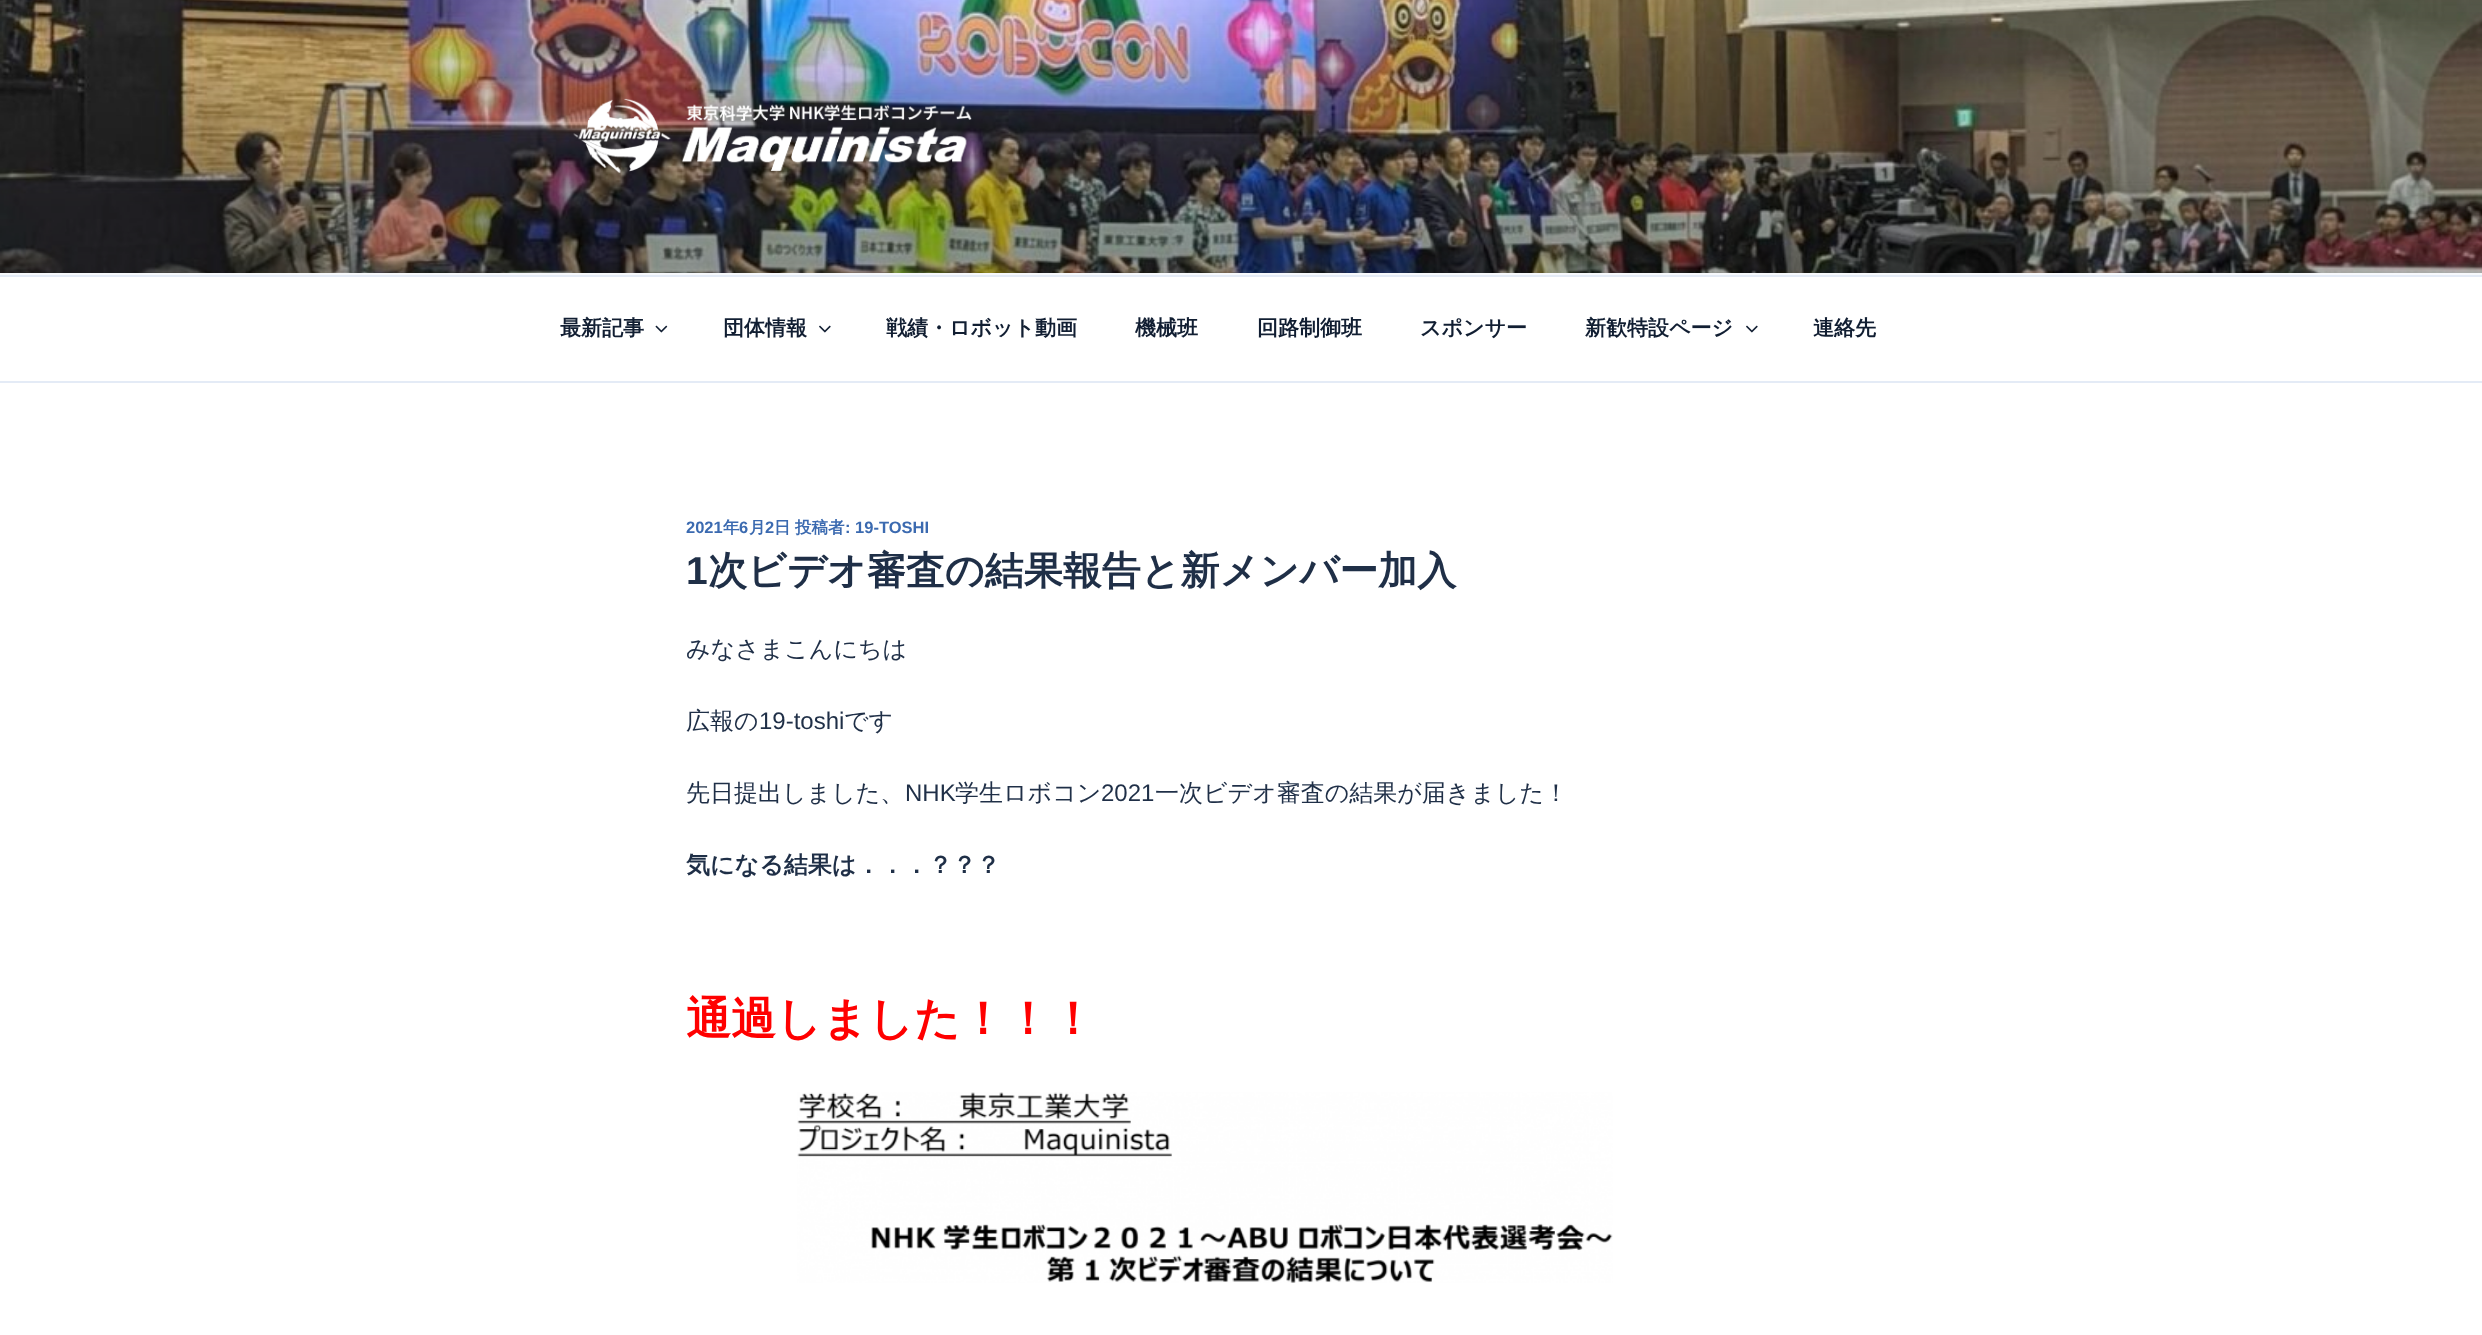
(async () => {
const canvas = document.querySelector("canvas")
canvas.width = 2482
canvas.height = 1335
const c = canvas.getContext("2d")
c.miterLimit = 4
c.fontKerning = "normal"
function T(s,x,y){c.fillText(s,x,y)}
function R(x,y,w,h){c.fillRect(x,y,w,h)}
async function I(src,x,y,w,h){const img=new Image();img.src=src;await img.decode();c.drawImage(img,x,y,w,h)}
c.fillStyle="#fff"
R(0,0,2482,1335)
c.fillStyle="#f7f9fc"
R(0,273,2482,2)
await I("1.png",0,0,2482,273)
await I("2.png",573,98,399,75)
c.fillStyle="#e4ebf6"
R(0,275,2482,2)
R(0,381,2482,2)
c.font="bold 21px WenQuanYi Zen Hei"
c.fillStyle="#111e32"
T("最新記事",560,335)
await I("3.png",655,325,13,8)
T("団体情報",723,335)
await I("4.png",819,325,12,8)
T("戦績・ロボット動画",886,335)
T("機械班",1135,335)
T("回路制御班",1257,335)
T("スポンサー",1420,335)
T("新歓特設ページ",1585,335)
await I("4.png",1746,325,12,8)
T("連絡先",1813,335)
c.font="bold 16.5px Liberation Sans"
c.fillStyle="#3b6ab0"
T("2021",686,533)
c.font="bold 16.5px WenQuanYi Zen Hei"
T("年",723,533)
c.font="bold 16.5px Liberation Sans"
T("6",739,533)
c.font="bold 16.5px WenQuanYi Zen Hei"
T("月",749,533)
c.font="bold 16.5px Liberation Sans"
T("2",765,533)
c.font="bold 16.5px WenQuanYi Zen Hei"
T("日",774,533)
T("投稿者",795,533)
c.font="bold 16.5px Liberation Sans"
T(": 19-TOSHI",845,533)
c.font="bold 39px Liberation Sans"
c.fillStyle="#1f2f47"
T("1",686,584)
c.font="bold 39px WenQuanYi Zen Hei"
T("次ビデオ審査の結果報告と新メンバー加入",708,584)
c.font="500 24px WenQuanYi Zen Hei"
T("みなさまこんにちは",686,657)
T("広報の",686,729)
c.font="24px Liberation Sans"
T("19-toshi",759,729)
c.font="500 24px WenQuanYi Zen Hei"
T("です",844,729)
T("先日提出しました、",686,801)
c.font="24px Liberation Sans"
T("NHK",905,801)
c.font="500 24px WenQuanYi Zen Hei"
T("学生ロボコン",955,801)
c.font="24px Liberation Sans"
T("2021",1101,801)
c.font="500 24px WenQuanYi Zen Hei"
T("一次ビデオ審査の結果が届きました！",1155,801)
c.font="bold 24px WenQuanYi Zen Hei"
T("気になる結果は．．．？？？",686,873)
c.font="bold 45px WenQuanYi Zen Hei"
c.fillStyle="#f00"
T("通過しました！！！",686,1034)
await I("5.png",797,1092,816,191)
})()
